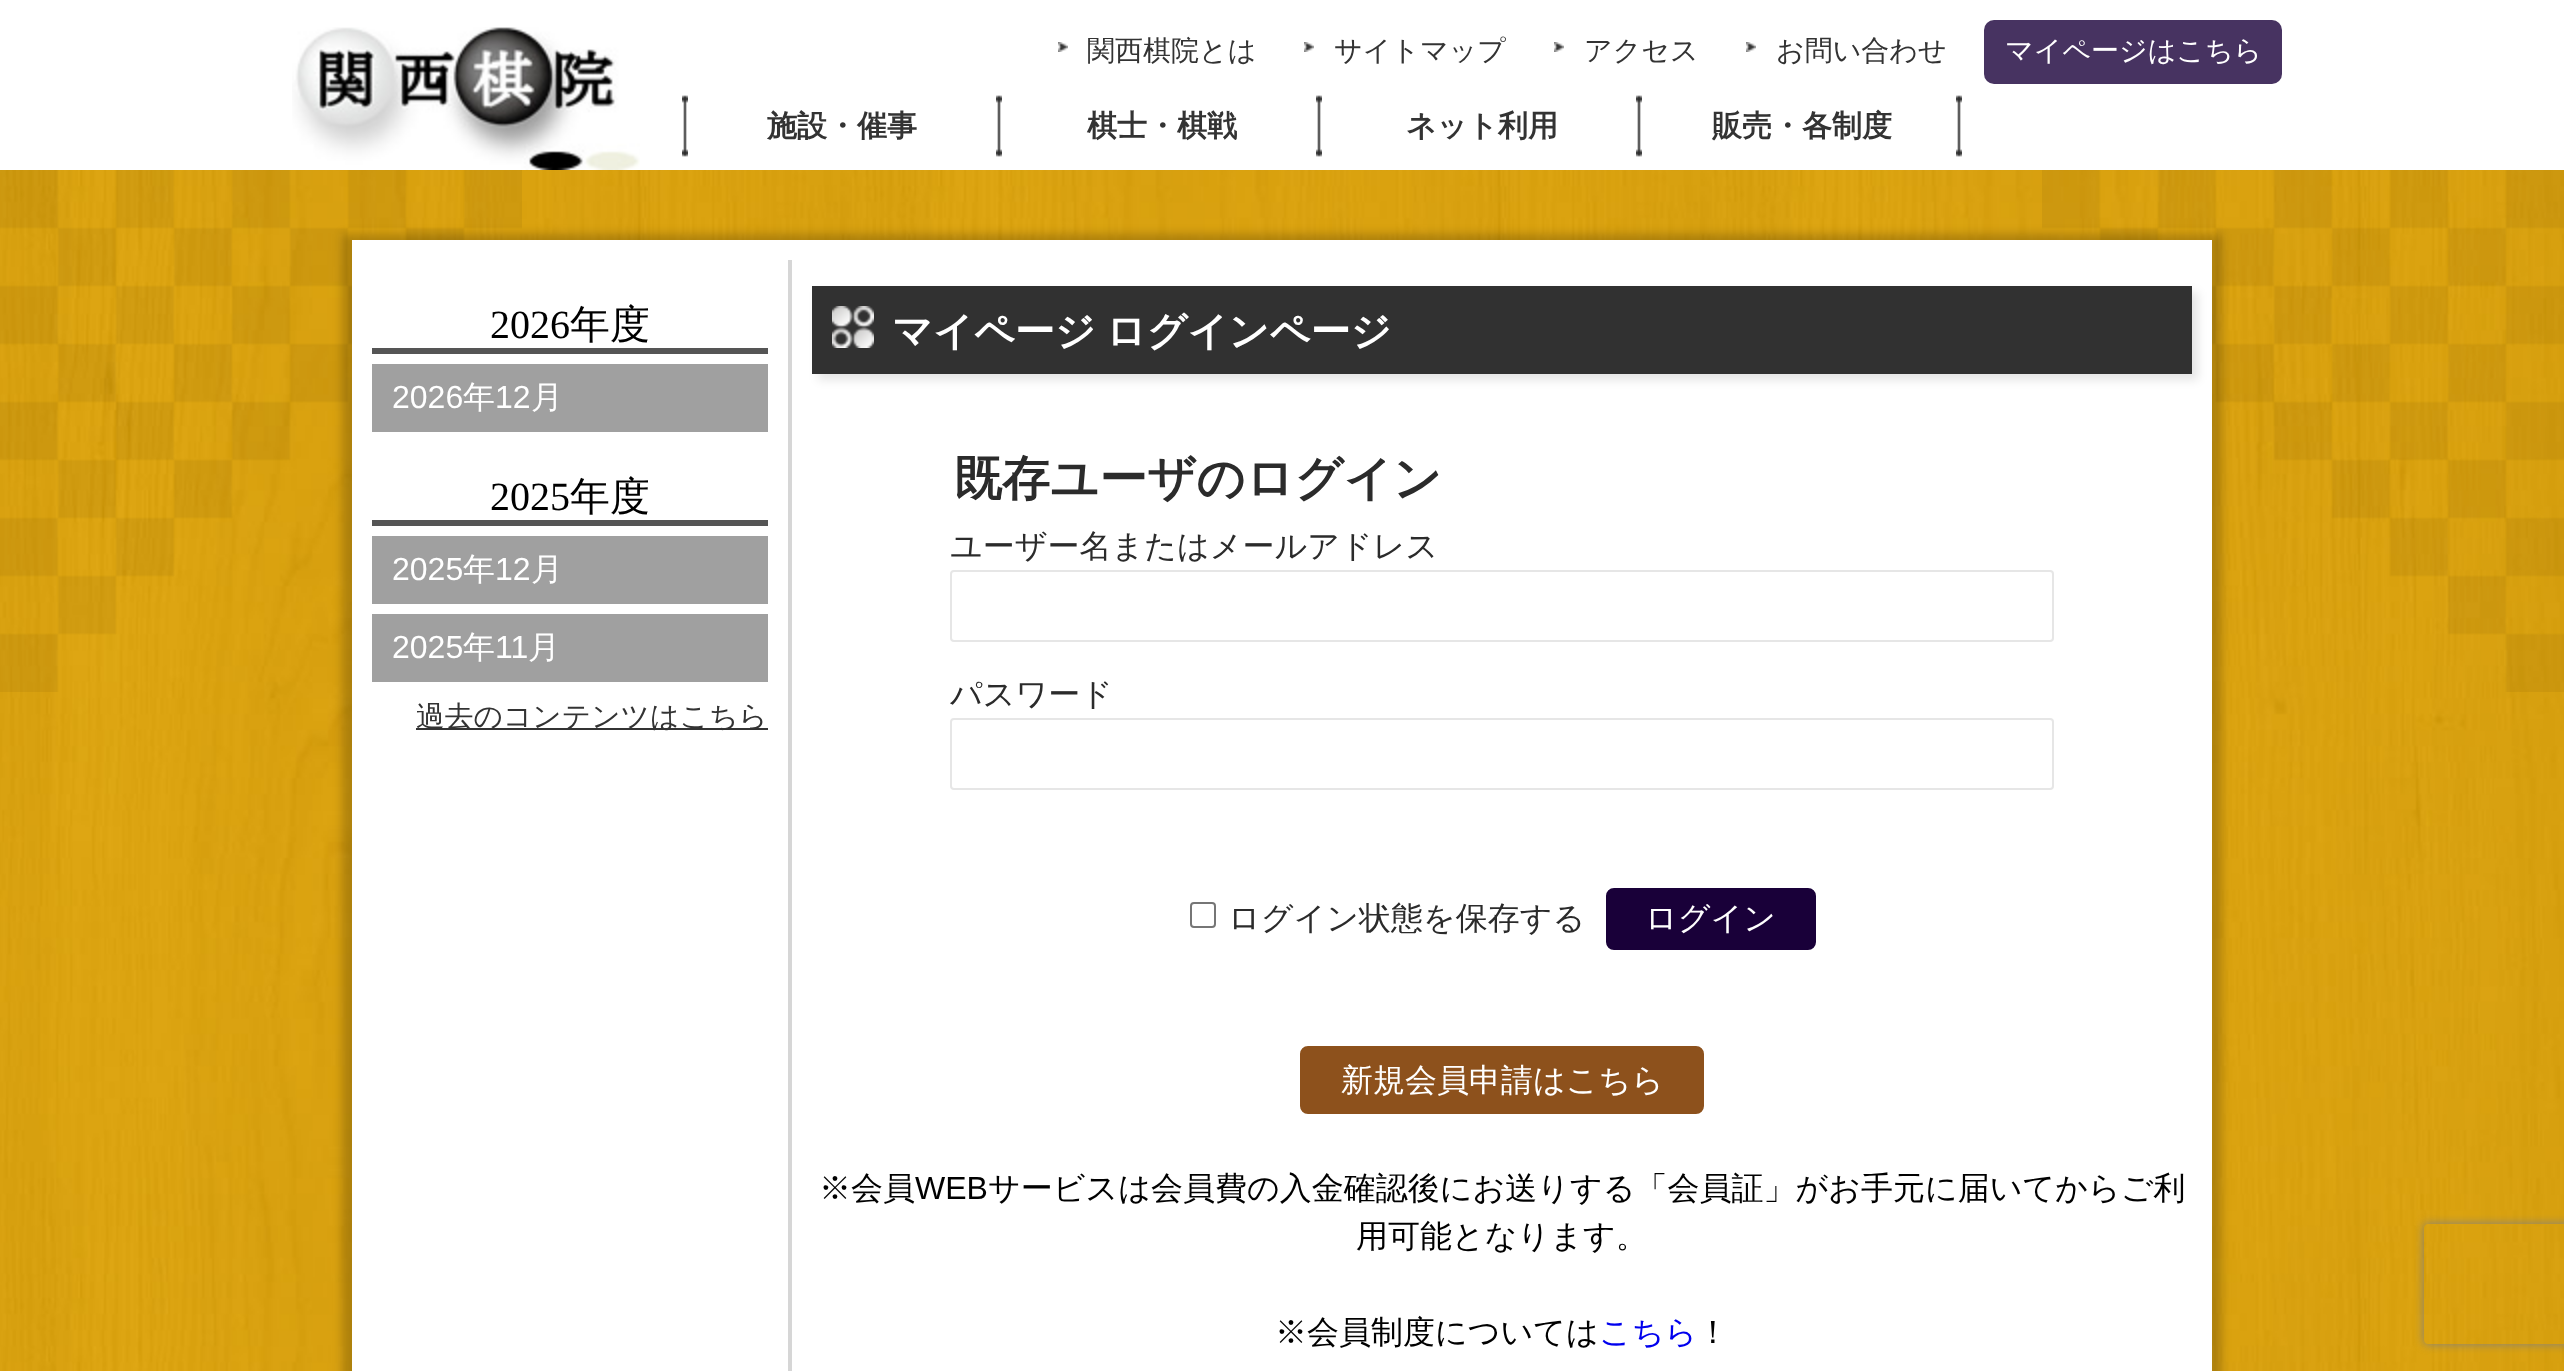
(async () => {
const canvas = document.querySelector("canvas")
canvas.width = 2564
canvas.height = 1371
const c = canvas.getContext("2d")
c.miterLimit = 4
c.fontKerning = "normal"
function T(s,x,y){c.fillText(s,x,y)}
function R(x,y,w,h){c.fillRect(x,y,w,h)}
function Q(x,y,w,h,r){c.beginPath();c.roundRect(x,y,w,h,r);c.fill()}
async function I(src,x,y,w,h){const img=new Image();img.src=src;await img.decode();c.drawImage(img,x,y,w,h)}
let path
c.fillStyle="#fff"
R(0,0,2564,1371)
await I("1.png",292,27,348,143)
await I("2.png",1058,42,10,10)
c.font="500 28px WenQuanYi Zen Hei"
c.fillStyle="#333"
T("関西棋院とは",1087,60)
await I("2.png",1304,42,10,10)
T("サイトマップ",1334,60)
await I("2.png",1554,42,10,10)
T("アクセス",1584,60)
await I("2.png",1746,42,10,10)
T("お問い合わせ",1776,60)
c.fillStyle="#473361"
Q(1984,20,298,64,10)
c.fillStyle="#fff"
T("マイページはこちら",2005,60)
await I("3.png",682,95,6,62)
await I("3.png",996,95,6,62)
c.font="bold 30px WenQuanYi Zen Hei"
c.fillStyle="#333"
T("施設・催事",767,136)
await I("3.png",1316,95,6,62)
T("棋士・棋戦",1087,136)
await I("3.png",1636,95,6,62)
T("ネット利用",1406,136)
await I("3.png",1956,95,6,62)
T("販売・各制度",1712,136)
await I("4.png",0,170,2564,1201)
await I("5.png",0,170,522,522)
await I("6.png",2042,170,522,522)
c.fillStyle="#00000033"
c.filter="blur(5px)"
c.beginPath()
c.rect(342,234,1880,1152)
c.fill()
c.filter="none"
c.fillStyle="#fff"
R(352,240,1860,1131)
c.fillStyle="#555"
R(372,348,396,6)
c.font="40px Liberation Serif"
c.fillStyle="#000"
T("2026",490,338)
c.font="500 40px WenQuanYi Zen Hei"
T("年度",570,338)
c.fillStyle="#a0a0a0"
R(372,364,396,68)
c.font="32px Liberation Sans"
c.fillStyle="#fff"
T("2026",392,408)
c.font="500 32px WenQuanYi Zen Hei"
T("年",463,408)
c.font="32px Liberation Sans"
T("12",495,408)
c.font="500 32px WenQuanYi Zen Hei"
T("月",531,408)
c.fillStyle="#555"
R(372,520,396,6)
c.font="40px Liberation Serif"
c.fillStyle="#000"
T("2025",490,510)
c.font="500 40px WenQuanYi Zen Hei"
T("年度",570,510)
c.fillStyle="#a0a0a0"
R(372,536,396,68)
c.font="32px Liberation Sans"
c.fillStyle="#fff"
T("2025",392,580)
c.font="500 32px WenQuanYi Zen Hei"
T("年",463,580)
c.font="32px Liberation Sans"
T("12",495,580)
c.font="500 32px WenQuanYi Zen Hei"
T("月",531,580)
c.fillStyle="#a0a0a0"
R(372,614,396,68)
c.font="32px Liberation Sans"
c.fillStyle="#fff"
T("2025",392,658)
c.font="500 32px WenQuanYi Zen Hei"
T("年",463,658)
c.font="32px Liberation Sans"
T("11",495,658)
c.font="500 32px WenQuanYi Zen Hei"
T("月",528,658)
c.fillStyle="#333"
R(416,728,352,2)
c.font="500 28.75px WenQuanYi Zen Hei"
T("過去のコンテンツはこちら",416,726)
c.fillStyle="#d6d6d6"
R(788,260,4,1111)
c.fillStyle="#0000001a"
c.filter="blur(5px)"
c.beginPath()
c.rect(818,292,1380,88)
c.fill()
c.filter="none"
c.fillStyle="#313131"
R(812,286,1380,88)
await I("7.png",832,306,42,42)
c.wordSpacing="-2px"
c.font="bold 40px WenQuanYi Zen Hei"
c.fillStyle="#fff"
T("マイページ ログインページ",892,345)
c.wordSpacing="0px"
c.font="bold 48px WenQuanYi Zen Hei"
c.fillStyle="#2b2b2b"
T("既存ユーザのログイン",954,495)
c.font="500 32px WenQuanYi Zen Hei"
T("ユーザー名またはメールアドレス",950,557)
c.beginPath()
c.roundRect(951,571,1102,70,3)
c.strokeStyle="#e6e6e6"
c.lineWidth=2
c.stroke()
T("パスワード",950,705)
c.beginPath()
c.roundRect(951,719,1102,70,3)
c.stroke()
c.beginPath()
c.roundRect(1191,903,24,24,3)
c.strokeStyle="#767676"
c.stroke()
T("ログイン状態を保存する",1228,929)
c.fillStyle="#190039"
c.beginPath()
c.roundRect(1605,887,212,64,9)
c.fill()
c.strokeStyle="#fff"
c.stroke()
c.fillStyle="#fff"
T("ログイン",1645,929)
c.fillStyle="#8d511c"
c.beginPath()
c.roundRect(1299,1045,406,70,9)
c.fill()
c.stroke()
c.fillStyle="#fff"
T("新規会員申請はこちら",1341,1091)
c.fillStyle="#000"
T("※会員",819,1199)
c.font="32px Liberation Sans"
T("WEB",915,1199)
c.font="500 32px WenQuanYi Zen Hei"
T("サービスは会員費の入金確認後にお送りする「会員証」がお手元に届いてからご利",988,1199)
T("用可能となります。",1356,1247)
T("※会員制度については",1275,1343)
c.fillStyle="#00e"
T("こちら",1599,1343)
c.fillStyle="#000"
T("！",1697,1343)
c.save()
path = new Path2D("M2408 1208h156v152h-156zm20 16h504c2 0 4 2 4 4v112c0 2-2 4-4 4h-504c-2 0-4-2-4-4v-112c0-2 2-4 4-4z")
c.clip(path,"evenodd")
c.fillStyle="#808080"
c.filter="blur(5px)"
c.beginPath()
c.roundRect(2424,1224,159,120,4)
c.fill()
c.filter="none"
c.restore()
})()
